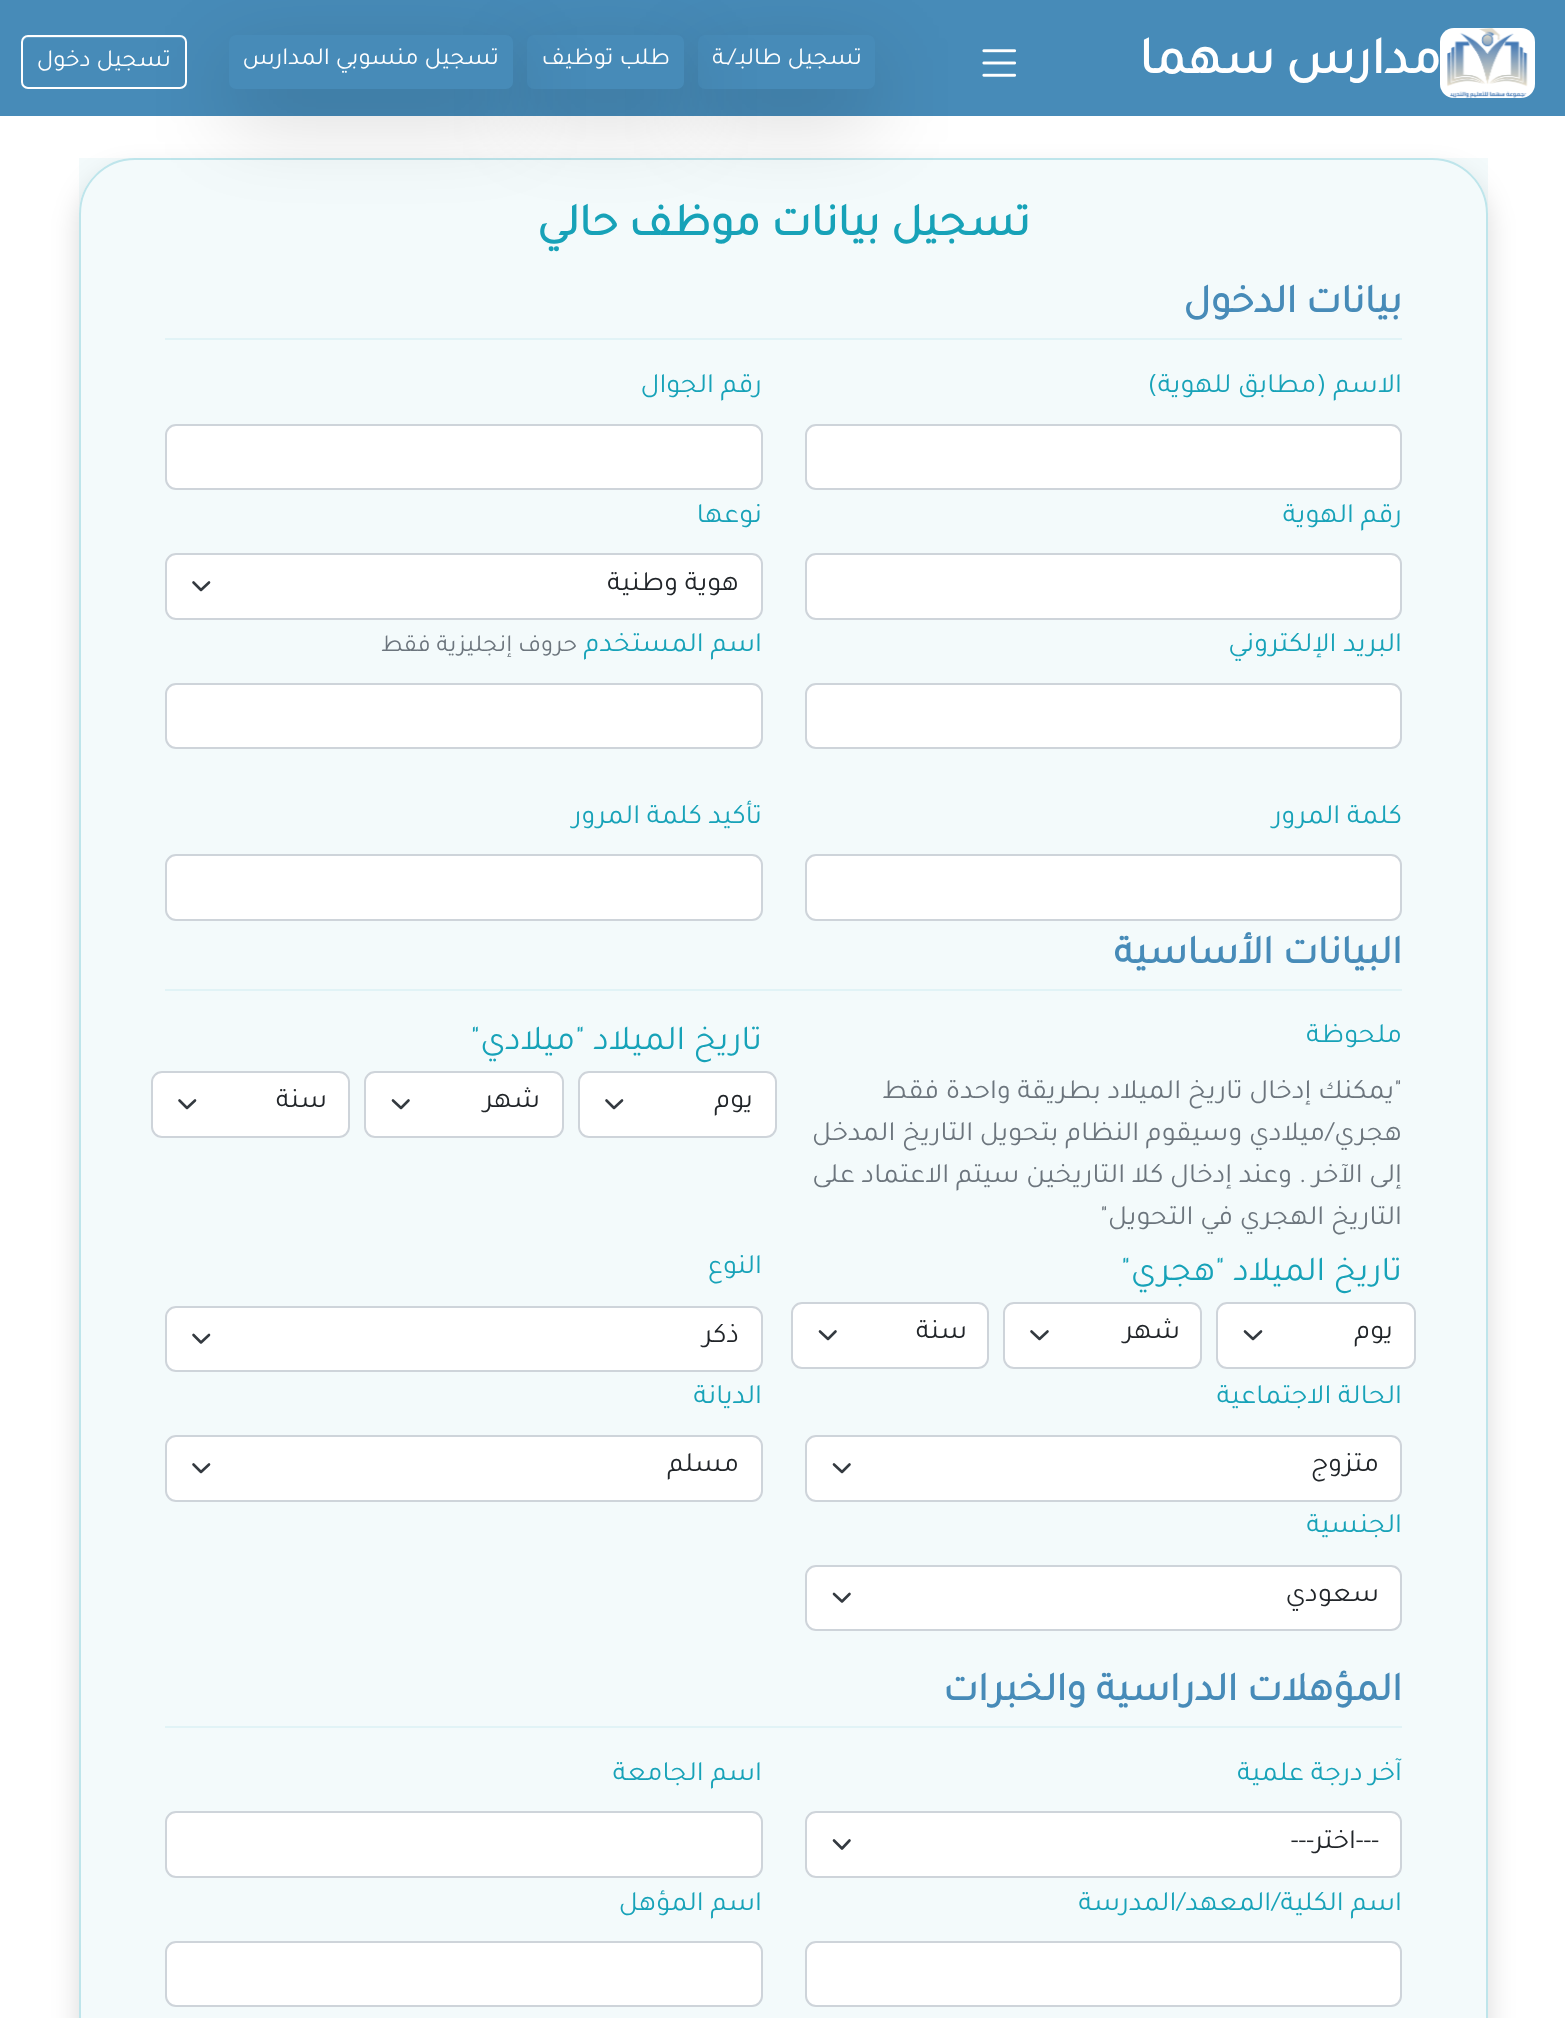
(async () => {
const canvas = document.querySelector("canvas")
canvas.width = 1565
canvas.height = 2018
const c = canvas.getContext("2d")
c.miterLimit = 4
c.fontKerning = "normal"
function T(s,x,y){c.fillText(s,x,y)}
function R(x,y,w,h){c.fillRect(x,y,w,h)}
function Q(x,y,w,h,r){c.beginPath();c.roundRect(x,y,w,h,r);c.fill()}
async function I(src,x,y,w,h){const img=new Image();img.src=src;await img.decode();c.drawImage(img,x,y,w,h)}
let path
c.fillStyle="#fff"
R(0,0,1565,2018)
c.fillStyle="#478bb8"
R(0,0,1565,116)
c.fillStyle="#fff"
Q(1440,28,95,70,14)
await I("1.png",1447,28,81,70)
c.letterSpacing="1.75px"
c.wordSpacing="-3px"
c.direction="rtl"
c.font="bold 52.5px Tajawal"
T("مدارس سهما",1441,73)
c.save()
path = new Path2D("M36 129h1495v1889h-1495zm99 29h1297c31 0 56 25 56 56v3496c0 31-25 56-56 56h-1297c-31 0-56-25-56-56v-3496c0-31 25-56 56-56z")
c.clip(path,"evenodd")
c.fillStyle="#00000026"
c.filter="blur(14px)"
c.beginPath()
c.roundRect(79,172,1409,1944,56)
c.fill()
c.filter="none"
c.restore()
c.fillStyle="#17a2b80d"
R(79,158,1409,1860)
c.beginPath()
c.roundRect(80,159,1407,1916,55)
c.strokeStyle="#bee5eb"
c.lineWidth=2
c.stroke()
c.fillStyle="#0000002e"
c.filter="blur(42px)"
c.beginPath()
c.roundRect(698,63,177,54,7)
c.fill()
c.filter="none"
await I("2.png",982,49,35,28)
c.fillStyle="#478bb8"
Q(698,35,177,54,7)
c.letterSpacing="0px"
c.wordSpacing="0px"
c.font="24.5px Tajawal"
c.fillStyle="#fff"
T("تسجيل طالبـ/ـة",862,64)
c.fillStyle="#0000002e"
c.filter="blur(42px)"
c.beginPath()
c.roundRect(527,63,157,54,7)
c.fill()
c.filter="none"
c.fillStyle="#478bb8"
Q(527,35,157,54,7)
c.fillStyle="#fff"
T("طلب توظيف",670,64)
c.fillStyle="#0000002e"
c.filter="blur(42px)"
c.beginPath()
c.roundRect(229,63,284,54,7)
c.fill()
c.filter="none"
c.fillStyle="#478bb8"
Q(229,35,284,54,7)
c.fillStyle="#fff"
T("تسجيل منسوبي المدارس",499,64)
c.fillStyle="#639cc3"
path = new Path2D("M28 38h152c3 0 6 3 6 6v-2c0-3-2-5-5-5h-153c-3 0-5 2-5 5v2c0-3 2-6 5-6z")
c.fill(path)
c.beginPath()
c.roundRect(22,36,164,52,6)
c.strokeStyle="#fff"
c.stroke()
c.fillStyle="#fff"
T("تسجيل دخول",171,66)
c.font="bold 45.75px Tajawal"
c.fillStyle="#17a2b8"
T("تسجيل بيانات موظف حالي",1030,235)
c.font="bold 40.4px Tajawal"
c.fillStyle="#478bb8"
T("بيانات الدخول",1402,312)
c.fillStyle="#e1f3f6"
R(165,338,1237,2)
c.font="28px Tajawal"
c.fillStyle="#17a2b8"
T("الاسم (مطابق للهوية)",1402,392)
c.fillStyle="#fff"
c.beginPath()
c.roundRect(806,425,595,64,10)
c.fill()
c.strokeStyle="#ced4da"
c.stroke()
c.fillStyle="#17a2b8"
T("رقم الجوال",762,392)
c.fillStyle="#fff"
c.beginPath()
c.roundRect(166,425,596,64,10)
c.fill()
c.stroke()
c.fillStyle="#17a2b8"
T("رقم الهوية",1402,522)
c.fillStyle="#fff"
c.beginPath()
c.roundRect(806,554,595,65,10)
c.fill()
c.stroke()
c.fillStyle="#17a2b8"
T("نوعها",762,522)
c.fillStyle="#fff"
Q(165,553,598,67,11)
path = new Path2D("M193.5 582.5l7.5 7.5l8-7.5")
c.strokeStyle="#343a40"
c.lineWidth=2.6
c.lineCap="round"
c.lineJoin="round"
c.stroke(path)
c.beginPath()
c.roundRect(166,554,596,65,10)
c.strokeStyle="#ced4da"
c.lineWidth=2
c.lineJoin="miter"
c.stroke()
c.fillStyle="#212529"
T("هوية وطنية",739,590)
c.fillStyle="#17a2b8"
T("البريد الإلكتروني",1402,651)
c.fillStyle="#fff"
c.beginPath()
c.roundRect(806,684,595,64,10)
c.fill()
c.stroke()
c.fillStyle="#17a2b8"
T("اسم المستخدم",762,651)
c.font="24.5px Tajawal"
c.fillStyle="#6c757d"
T("حروف إنجليزية فقط",577,651)
c.fillStyle="#fff"
c.beginPath()
c.roundRect(166,684,596,64,10)
c.fill()
c.stroke()
c.font="28px Tajawal"
c.fillStyle="#17a2b8"
T("كلمة المرور",1402,823)
c.fillStyle="#fff"
c.beginPath()
c.roundRect(806,855,595,65,10)
c.fill()
c.stroke()
c.fillStyle="#17a2b8"
T("تأكيد كلمة المرور",762,823)
c.fillStyle="#fff"
c.beginPath()
c.roundRect(166,855,596,65,10)
c.fill()
c.stroke()
c.font="bold 40.4px Tajawal"
c.fillStyle="#478bb8"
T("البيانات الأساسية",1402,963)
c.fillStyle="#e1f3f6"
R(165,989,1237,2)
c.font="28px Tajawal"
c.fillStyle="#17a2b8"
T("ملحوظة",1402,1042)
c.fillStyle="#6c757d"
T("\"يمكنك إدخال تاريخ الميلاد بطريقة واحدة فقط",1402,1098)
T("هجري/ميلادي وسيقوم النظام بتحويل التاريخ المدخل",1402,1140)
T("إلى الآخر .",1402,1182)
T("وعند إدخال كلا التاريخين سيتم الاعتماد على",1292,1182)
T("التاريخ الهجري في التحويل\"",1402,1224)
c.font="35px Tajawal"
c.fillStyle="#17a2b8"
T("تاريخ الميلاد \"ميلادي\"",762,1049)
c.fillStyle="#fff"
Q(578,1071,199,67,11)
path = new Path2D("M606.5 1100.5l7.5 7.5l8-7.5")
c.strokeStyle="#343a40"
c.lineWidth=2.6
c.lineJoin="round"
c.stroke(path)
c.beginPath()
c.roundRect(579,1072,197,65,10)
c.strokeStyle="#ced4da"
c.lineWidth=2
c.lineJoin="miter"
c.stroke()
c.font="28px Tajawal"
c.fillStyle="#212529"
T("يوم",753,1107)
c.fillStyle="#fff"
Q(364,1071,200,67,11)
path = new Path2D("M393 1100.5l8 7.5l7.5-7.5")
c.strokeStyle="#343a40"
c.lineWidth=2.6
c.lineJoin="round"
c.stroke(path)
c.beginPath()
c.roundRect(365,1072,198,65,10)
c.strokeStyle="#ced4da"
c.lineWidth=2
c.lineJoin="miter"
c.stroke()
c.fillStyle="#212529"
T("شهر",540,1107)
c.fillStyle="#fff"
Q(151,1071,199,67,11)
path = new Path2D("M179.5 1100.5l7.5 7.5l8-7.5")
c.strokeStyle="#343a40"
c.lineWidth=2.6
c.lineJoin="round"
c.stroke(path)
c.beginPath()
c.roundRect(152,1072,197,65,10)
c.strokeStyle="#ced4da"
c.lineWidth=2
c.lineJoin="miter"
c.stroke()
c.fillStyle="#212529"
T("سنة",327,1107)
c.font="35px Tajawal"
c.fillStyle="#17a2b8"
T("تاريخ الميلاد \"هجري\"",1402,1280)
c.fillStyle="#fff"
Q(1216,1302,200,67,11)
path = new Path2D("M1245 1331.5l8 7.5l8-7.5")
c.strokeStyle="#343a40"
c.lineWidth=2.6
c.lineJoin="round"
c.stroke(path)
c.beginPath()
c.roundRect(1217,1303,198,65,10)
c.strokeStyle="#ced4da"
c.lineWidth=2
c.lineJoin="miter"
c.stroke()
c.font="28px Tajawal"
c.fillStyle="#212529"
T("يوم",1393,1338)
c.fillStyle="#fff"
Q(1003,1302,199,67,11)
path = new Path2D("M1031.5 1331.5l8 7.5l8-7.5")
c.strokeStyle="#343a40"
c.lineWidth=2.6
c.lineJoin="round"
c.stroke(path)
c.beginPath()
c.roundRect(1004,1303,197,65,10)
c.strokeStyle="#ced4da"
c.lineWidth=2
c.lineJoin="miter"
c.stroke()
c.fillStyle="#212529"
T("شهر",1180,1338)
c.fillStyle="#fff"
Q(791,1302,198,67,11)
path = new Path2D("M820 1331.5l8 7.5l7.5-7.5")
c.strokeStyle="#343a40"
c.lineWidth=2.6
c.lineJoin="round"
c.stroke(path)
c.beginPath()
c.roundRect(792,1303,196,65,10)
c.strokeStyle="#ced4da"
c.lineWidth=2
c.lineJoin="miter"
c.stroke()
c.fillStyle="#212529"
T("سنة",967,1338)
c.fillStyle="#17a2b8"
T("النوع",762,1273)
c.fillStyle="#fff"
Q(165,1306,598,66,11)
path = new Path2D("M193.5 1335l7.5 7.5l8-7.5")
c.strokeStyle="#343a40"
c.lineWidth=2.6
c.lineJoin="round"
c.stroke(path)
c.beginPath()
c.roundRect(166,1307,596,64,10)
c.strokeStyle="#ced4da"
c.lineWidth=2
c.lineJoin="miter"
c.stroke()
c.fillStyle="#212529"
T("ذكر",739,1342)
c.fillStyle="#17a2b8"
T("الحالة الاجتماعية",1402,1403)
c.fillStyle="#fff"
Q(805,1435,597,67,11)
path = new Path2D("M834 1464.5l8 7.5l7.5-7.5")
c.strokeStyle="#343a40"
c.lineWidth=2.6
c.lineJoin="round"
c.stroke(path)
c.beginPath()
c.roundRect(806,1436,595,65,10)
c.strokeStyle="#ced4da"
c.lineWidth=2
c.lineJoin="miter"
c.stroke()
c.fillStyle="#212529"
T("متزوج",1379,1471)
c.fillStyle="#17a2b8"
T("الديانة",762,1403)
c.fillStyle="#fff"
Q(165,1435,598,67,11)
path = new Path2D("M193.5 1464.5l7.5 7.5l8-7.5")
c.strokeStyle="#343a40"
c.lineWidth=2.6
c.lineJoin="round"
c.stroke(path)
c.beginPath()
c.roundRect(166,1436,596,65,10)
c.strokeStyle="#ced4da"
c.lineWidth=2
c.lineJoin="miter"
c.stroke()
c.fillStyle="#212529"
T("مسلم",739,1471)
c.fillStyle="#17a2b8"
T("الجنسية",1402,1532)
c.fillStyle="#fff"
Q(805,1565,597,66,11)
path = new Path2D("M834 1594l8 7.5l7.5-7.5")
c.strokeStyle="#343a40"
c.lineWidth=2.6
c.lineJoin="round"
c.stroke(path)
c.beginPath()
c.roundRect(806,1566,595,64,10)
c.strokeStyle="#ced4da"
c.lineWidth=2
c.lineJoin="miter"
c.stroke()
c.fillStyle="#212529"
T("سعودي",1379,1601)
c.font="bold 40.4px Tajawal"
c.fillStyle="#478bb8"
T("المؤهلات الدراسية والخبرات",1402,1700)
c.fillStyle="#e1f3f6"
R(165,1726,1237,2)
c.font="28px Tajawal"
c.fillStyle="#17a2b8"
T("آخر درجة علمية",1402,1780)
c.fillStyle="#fff"
Q(805,1811,597,67,11)
path = new Path2D("M834 1840.5l8 8l7.5-8")
c.strokeStyle="#343a40"
c.lineWidth=2.6
c.lineJoin="round"
c.stroke(path)
c.beginPath()
c.roundRect(806,1812,595,65,10)
c.strokeStyle="#ced4da"
c.lineWidth=2
c.lineJoin="miter"
c.stroke()
c.fillStyle="#212529"
T("---اختر---",1379,1848)
c.fillStyle="#17a2b8"
T("اسم الجامعة",762,1780)
c.fillStyle="#fff"
c.beginPath()
c.roundRect(166,1812,596,65,10)
c.fill()
c.stroke()
c.fillStyle="#17a2b8"
T("اسم الكلية/المعهد/المدرسة",1402,1910)
c.fillStyle="#fff"
c.beginPath()
c.roundRect(806,1942,595,64,10)
c.fill()
c.stroke()
c.fillStyle="#17a2b8"
T("اسم المؤهل",762,1910)
c.fillStyle="#fff"
c.beginPath()
c.roundRect(166,1942,596,64,10)
c.fill()
c.stroke()
})()
